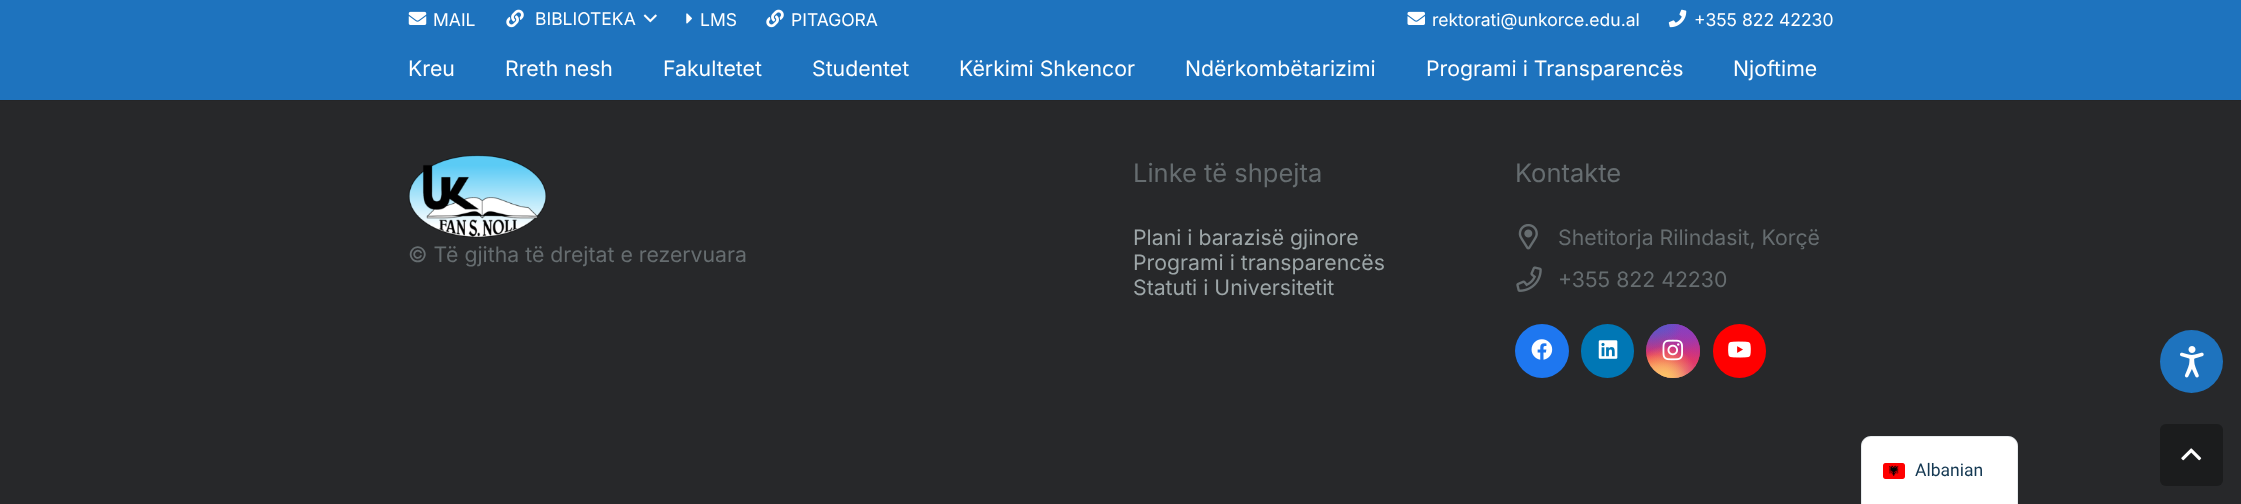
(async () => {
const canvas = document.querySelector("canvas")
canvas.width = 2241
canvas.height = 504
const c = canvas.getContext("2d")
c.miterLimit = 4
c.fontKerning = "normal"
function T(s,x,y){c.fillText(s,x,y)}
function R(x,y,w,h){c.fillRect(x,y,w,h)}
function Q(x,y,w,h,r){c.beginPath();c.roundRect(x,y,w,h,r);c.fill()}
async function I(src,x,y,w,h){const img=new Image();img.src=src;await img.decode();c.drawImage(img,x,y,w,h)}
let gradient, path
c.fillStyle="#27282a"
R(0,0,2241,504)
c.fillStyle="#1e73be"
R(0,0,2241,100)
await I("1.png",408,11,19,14)
c.font="17.5px Inter"
c.fillStyle="#fff"
T("MAIL",433,26)
await I("2.png",506,9,18,19)
T("BIBLIOTEKA",535,25)
await I("3.png",643,14,14,9)
await I("4.png",686,13,6,11)
T("LMS",700,26)
await I("2.png",766,9,18,19)
T("PITAGORA",791,26)
await I("5.png",1407,11,18,14)
T("rektorati@unkorce.edu.al",1432,26)
await I("6.png",1668,9,19,19)
T("+355 822 42230",1694,26)
c.fillStyle="#242527"
R(0,100,2241,1)
c.font="21.25px Inter"
c.fillStyle="#fff"
T("Kreu",408,76)
T("Rreth nesh",505,76)
T("Fakultetet",663,76)
T("Studentet",812,76)
T("Kërkimi Shkencor",959,76)
T("Ndërkombëtarizimi",1185,76)
T("Programi i Transparencës",1426,76)
T("Njoftime",1733,76)
await I("7.png",408,155,139,83)
c.fillStyle="#666d70"
T("© Të gjitha të drejtat e rezervuara",408,262)
c.font="25.5px Inter"
T("Linke të shpejta",1133,182)
c.font="21.25px Inter"
c.fillStyle="#9da6a8"
T("Plani i barazisë gjinore",1133,245)
T("Programi i transparencës",1133,270)
T("Statuti i Universitetit",1133,295)
c.font="25.5px Inter"
c.fillStyle="#666d70"
T("Kontakte",1515,182)
await I("8.png",1518,224,20,26)
c.font="21.25px Inter"
T("Shetitorja Rilindasit, Korçë",1558,245)
await I("9.png",1516,266,26,26)
T("+355 822 42230",1558,287)
c.fillStyle="#1e77f0"
c.beginPath()
c.arc(1542,351,27,0,7)
c.fill()
await I("10.png",1531,339,22,21)
c.fillStyle="#0077b5"
Q(1581,324,53,54,26.5)
await I("11.png",1598,340,20,19)
gradient = c.createLinearGradient(1673,324,1673,378)
gradient.addColorStop(0,"#6559ca")
gradient.addColorStop(.3,"#bc318f")
gradient.addColorStop(.5,"#e42e66")
gradient.addColorStop(.7,"#fa5332")
gradient.addColorStop(1,"#ffdc80")
c.fillStyle = gradient
c.beginPath()
c.arc(1673,351,27,0,7)
c.fill()
gradient = c.createRadialGradient(1700,378,0,1700,378,76)
gradient.addColorStop(0,"#d9317a")
gradient.addColorStop(1,"#d9317a00")
c.fillStyle = gradient
c.beginPath()
c.arc(1673,351,27,0,7)
c.fill()
gradient = c.createRadialGradient(1679,158.22,0,1679,158.22,46)
gradient.addColorStop(0,"#893dc2")
gradient.addColorStop(.5,"#893dc200")
c.fillStyle = gradient
c.beginPath()
c.arc(1673,351,27,0,7)
c.save()
c.clip()
c.scale(1,91 / 46)
c.fillRect(0,0,2241,255)
c.restore()
gradient = c.createRadialGradient(1700,324,0,1700,324,76)
gradient.addColorStop(0,"#893dc2")
gradient.addColorStop(.5,"#893dc200")
c.fillStyle = gradient
c.beginPath()
c.arc(1673,351,27,0,7)
c.fill()
gradient = c.createRadialGradient(1657,158.92,0,1657,158.92,61)
gradient.addColorStop(0,"#5258cf")
gradient.addColorStop(.5,"#5258cf00")
c.fillStyle = gradient
c.beginPath()
c.arc(1673,351,27,0,7)
c.save()
c.clip()
c.scale(1,114 / 61)
c.fillRect(0,0,2241,270)
c.restore()
gradient = c.createRadialGradient(1646,248,0,1646,248,76)
gradient.addColorStop(0,"#5258cf")
gradient.addColorStop(.5,"#5258cf00")
c.fillStyle = gradient
c.beginPath()
c.arc(1673,351,27,0,7)
c.save()
c.clip()
c.scale(1,95 / 76)
c.fillRect(0,0,2241,404)
c.restore()
gradient = c.createRadialGradient(1652,399,0,1652,399,89)
gradient.addColorStop(0,"#feda7e")
gradient.addColorStop(.5,"#feda7e00")
c.fillStyle = gradient
c.beginPath()
c.arc(1673,351,27,0,7)
c.fill()
gradient = c.createRadialGradient(1665,378,0,1665,378,64)
gradient.addColorStop(0,"#fec564")
gradient.addColorStop(.5,"#fec56400")
c.fillStyle = gradient
c.beginPath()
c.arc(1673,351,27,0,7)
c.fill()
await I("12.png",1662,339,21,22)
c.fillStyle="#f00"
Q(1713,324,53,54,26.5)
await I("13.png",1728,341,23,17)
c.fillStyle="#1e73be"
c.beginPath()
c.arc(2191.5,361.5,31.5,0,7)
c.fill()
await I("14.png",2180,346,24,32)
c.fillStyle="#fff"
path = new Path2D("M1871 436h137c5.5 0 10 4.5 10 10v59h-157v-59c0-5.5 4.5-10 10-10z")
c.fill(path)
path = new Path2D("M1871 436.5h137c5 0 9.5 4.5 9.5 9.5v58.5h-156v-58.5c0-5 4.5-9.5 9.5-9.5z")
c.strokeStyle="#1438521a"
c.stroke(path)
await I("15.png",1883,463,22,16)
c.font="17.5px Roboto"
c.fillStyle="#143852"
T("Albanian",1915,476)
c.fillStyle="#1b1c1d"
Q(2160,424,63,62,6)
await I("16.png",2181,448,21,13)
})()
